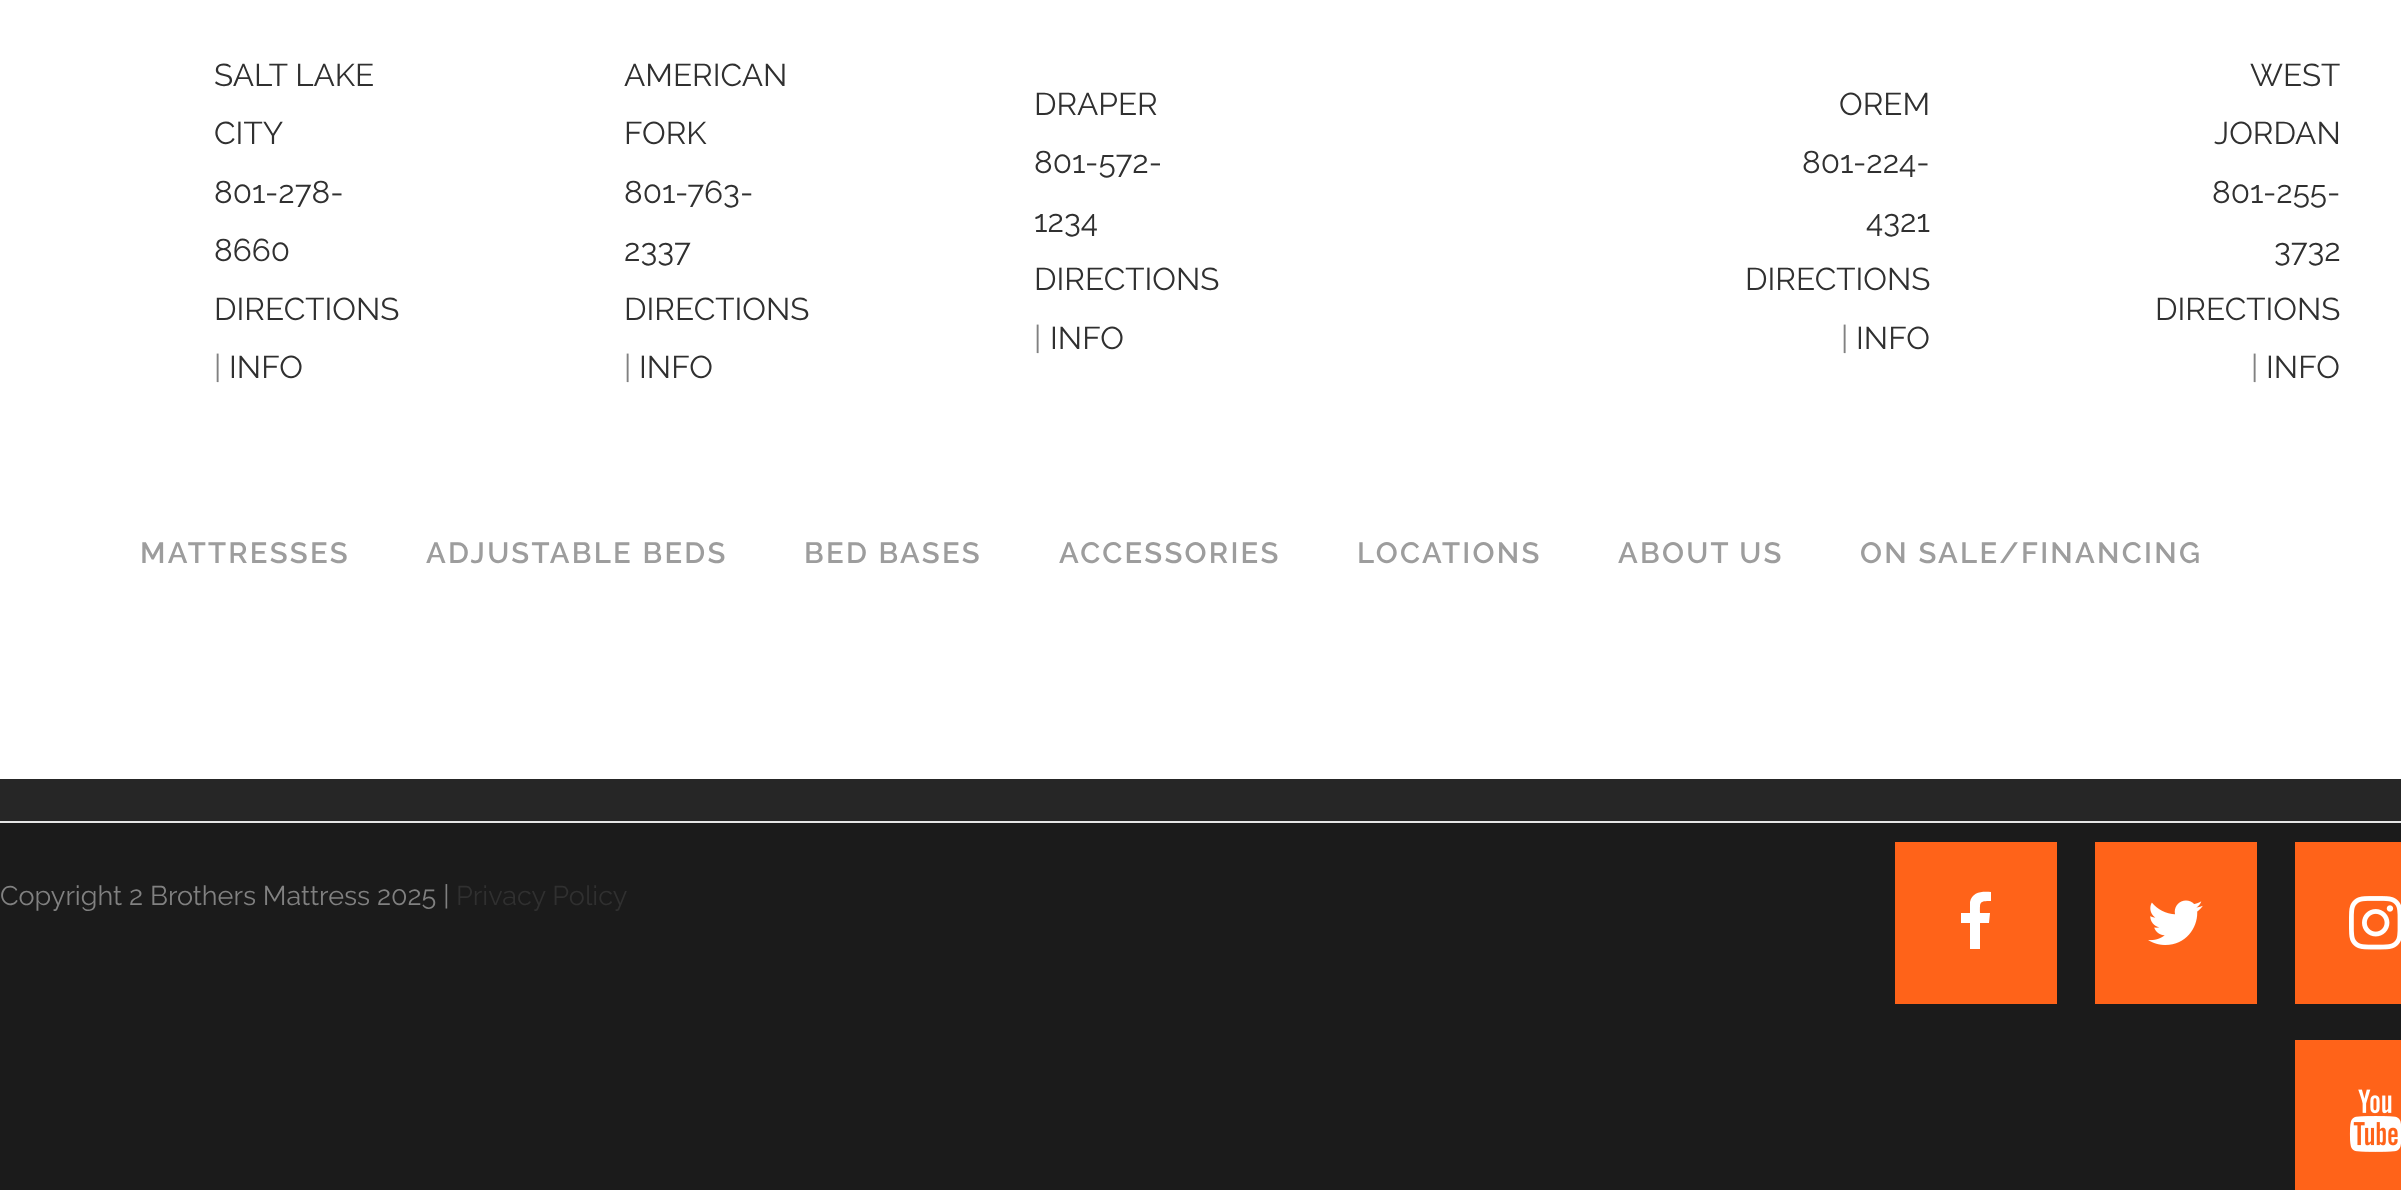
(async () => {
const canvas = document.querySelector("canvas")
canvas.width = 2401
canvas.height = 1190
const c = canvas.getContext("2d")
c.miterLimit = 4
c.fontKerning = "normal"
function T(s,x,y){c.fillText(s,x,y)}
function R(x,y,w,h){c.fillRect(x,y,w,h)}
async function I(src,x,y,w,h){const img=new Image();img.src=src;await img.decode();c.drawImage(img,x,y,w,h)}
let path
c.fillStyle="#1b1b1b"
R(0,0,2401,1190)
c.fillStyle="#fff"
R(0,0,2401,779)
c.font="31.5px Raleway"
c.fillStyle="#303030"
T("SALT LAKE",214,86)
T("CITY",214,144)
T("801-278-",214,203)
T("8660",214,261)
T("DIRECTIONS",214,320)
c.fillStyle="#818181"
T("|",214,378)
c.fillStyle="#303030"
T("INFO",229,378)
T("AMERICAN",624,86)
T("FORK",624,144)
T("801-763-",624,203)
T("2337",624,261)
T("DIRECTIONS",624,320)
c.fillStyle="#818181"
T("|",624,378)
c.fillStyle="#303030"
T("INFO",639,378)
T("DRAPER",1034,115)
T("801-572-",1034,173)
T("1234",1034,232)
T("DIRECTIONS",1034,290)
c.fillStyle="#818181"
T("|",1034,349)
c.fillStyle="#303030"
T("INFO",1050,349)
T("OREM",1839,115)
T("801-224-",1802,173)
T("4321",1866,232)
T("DIRECTIONS",1745,290)
c.fillStyle="#818181"
T("|",1841,349)
c.fillStyle="#303030"
T("INFO",1856,349)
T("WEST",2250,86)
T("JORDAN",2214,144)
T("801-255-",2212,203)
T("3732",2274,261)
T("DIRECTIONS",2155,320)
c.fillStyle="#818181"
T("|",2251,378)
c.fillStyle="#303030"
T("INFO",2266,378)
c.letterSpacing="2.25px"
c.font="600 29.25px Raleway"
c.fillStyle="#9d9d9d"
T("MATTRESSES",140,563)
T("ADJUSTABLE BEDS",426,563)
T("BED BASES",804,563)
T("ACCESSORIES",1059,563)
T("LOCATIONS",1357,563)
T("ABOUT US",1618,563)
T("ON SALE/FINANCING",1860,563)
c.fillStyle="#262626"
R(0,779,2401,42)
c.fillStyle="#e5e5e5"
R(0,821,2401,2)
c.letterSpacing="0px"
c.font="27px Raleway"
c.fillStyle="#818181"
T("Copyright 2 Brothers Mattress 2025 |",0,905)
c.fillStyle="#303030"
T("Privacy Policy",456,905)
c.fillStyle="#ff6319"
R(1895,842,162,162)
c.fillStyle="#fff"
path = new Path2D("M1991 892c-9-1-19 0-21 10v11h-9v10h9v26h10v-26h9l1-10h-10c0-11-1-12 11-12z")
c.fill(path)
c.fillStyle="#ff6319"
R(2095,842,162,162)
await I("1.png",2148,900,55,45)
R(2295,842,106,162)
await I("2.png",2349,896,52,54)
R(2295,1040,106,150)
await I("3.png",2349,1089,52,63)
})()
